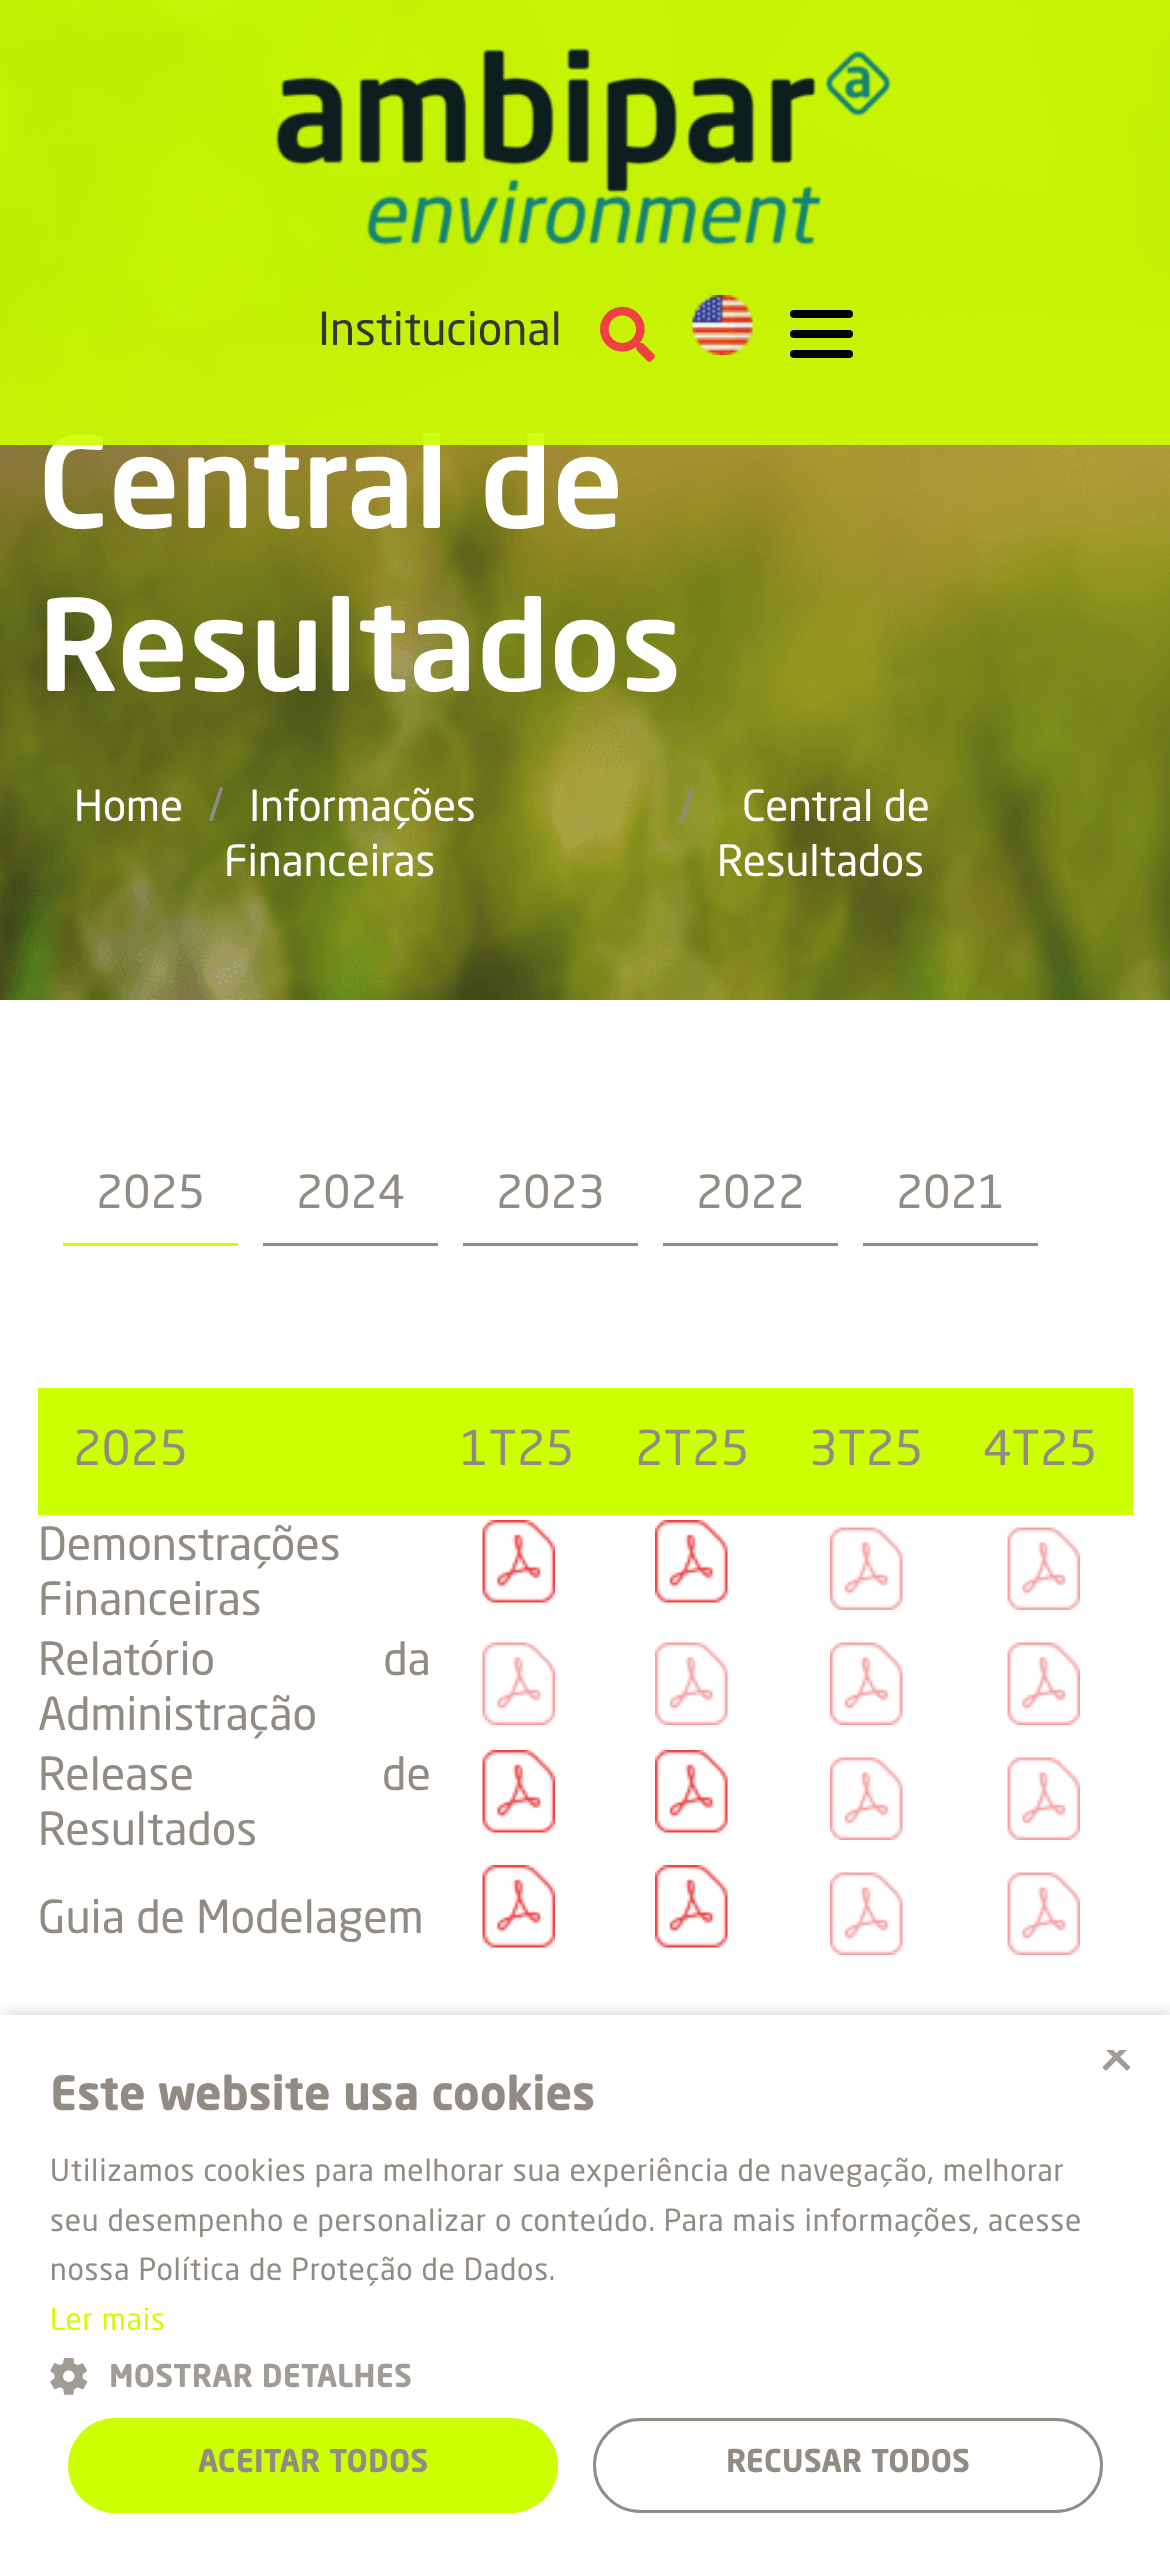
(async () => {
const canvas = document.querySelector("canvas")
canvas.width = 1170
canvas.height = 2562
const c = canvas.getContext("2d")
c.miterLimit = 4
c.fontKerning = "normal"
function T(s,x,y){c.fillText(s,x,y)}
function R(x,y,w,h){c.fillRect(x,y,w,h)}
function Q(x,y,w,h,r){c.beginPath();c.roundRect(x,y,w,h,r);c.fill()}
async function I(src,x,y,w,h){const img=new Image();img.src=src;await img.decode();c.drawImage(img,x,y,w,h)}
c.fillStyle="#fff"
R(0,0,1170,2562)
await I("4.png",0,0,1170,1000)
c.font="500 125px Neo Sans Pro"
T("Central de",38,528)
c.fillStyle="#ccff00e6"
R(0,0,1170,445)
await I("1.png",275,48,616,197)
c.font="45px Neo Sans Pro"
c.fillStyle="#373435"
T("Institucional",318,345)
await I("2.png",600,306,55,56)
await I("3.png",692,295,61,60)
c.fillStyle="#010101"
Q(790,310,63,8,4)
Q(790,330,63,8,4)
Q(790,350,63,8,4)
c.font="500 125px Neo Sans Pro"
c.fillStyle="#fff"
T("Resultados",38,691)
c.font="42.5px Neo Sans Pro"
T("Home",74,821)
c.font="45px Neo Sans Pro"
c.fillStyle="#918b84"
T("/",208,821)
c.font="42.5px Neo Sans Pro"
c.fillStyle="#fff"
T("Informações",249,821)
T("Financeiras",224,876)
c.font="45px Neo Sans Pro"
c.fillStyle="#918b84"
T("/",679,821)
c.font="42.5px Neo Sans Pro"
c.fillStyle="#fff"
T("Central de",742,821)
T("Resultados",717,876)
c.fillStyle="#cf0"
R(63,1243,175,3)
c.font="45px Neo Sans Pro"
c.fillStyle="#918b84"
T("2025",96,1208)
R(263,1243,175,3)
T("2024",296,1208)
R(463,1243,175,3)
T("2023",496,1208)
R(663,1243,175,3)
T("2022",696,1208)
R(863,1243,175,3)
T("2021",896,1208)
c.fillStyle="#cf0"
R(38,1388,1095,127)
c.font="47.5px Neo Sans Pro"
c.fillStyle="#918b84"
T("2025",73,1465)
T("1T25",460,1465)
T("2T25",635,1465)
T("3T25",809,1465)
T("4T25",983,1465)
c.font="45px Neo Sans Pro"
T("Demonstrações",38,1560)
T("Financeiras",38,1615)
await I("5.png",482,1520,73,83)
await I("6.png",655,1520,73,83)
await I("7.png",830,1527,73,83)
await I("8.png",1007,1527,73,83)
c.wordSpacing="157px"
T("Relatório da",38,1675)
c.wordSpacing="0px"
T("Administração",38,1730)
await I("9.png",482,1642,73,83)
await I("10.png",655,1642,73,83)
await I("7.png",830,1642,73,83)
await I("8.png",1007,1642,73,83)
c.wordSpacing="177px"
T("Release de",38,1790)
c.wordSpacing="0px"
T("Resultados",38,1845)
await I("5.png",482,1750,73,83)
await I("6.png",655,1750,73,83)
await I("7.png",830,1757,73,83)
await I("8.png",1007,1757,73,83)
T("Guia de Modelagem",38,1933)
await I("5.png",482,1865,73,83)
await I("6.png",655,1865,73,83)
await I("7.png",830,1872,73,83)
await I("8.png",1007,1872,73,83)
c.fillStyle="#00000059"
c.filter="blur(10px)"
c.beginPath()
c.rect(3,2020,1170,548)
c.fill()
c.filter="none"
c.fillStyle="#fff"
R(0,2015,1170,547)
c.save()
c.beginPath()
c.rect(1095,2050,38,38)
c.clip()
c.font="72px Neo Sans Pro"
c.fillStyle="#a29c96"
T("×",1095,2085)
c.restore()
c.letterSpacing="1px"
c.font="bold 45px Neo Sans Pro"
c.fillStyle="#918b84"
T("Este website usa cookies",50,2110)
c.letterSpacing="0.75px"
c.font="30px Neo Sans Pro"
T("Utilizamos cookies para melhorar sua experiência de navegação, melhorar",50,2181)
T("seu desempenho e personalizar o conteúdo. Para mais informações, acesse",50,2231)
T("nossa Política de Proteção de Dados.",50,2280)
c.fillStyle="#cf0"
T("Ler mais",50,2330)
await I("11.png",50,2358,38,37)
c.letterSpacing="1px"
c.font="bold 30px Neo Sans Pro"
c.fillStyle="#a29c96"
T("MOSTRAR DETALHES",109,2387)
c.fillStyle="#cf0"
Q(68,2418,490,95,47.5)
c.fillStyle="#918b84"
T("ACEITAR TODOS",198,2472)
c.beginPath()
c.roundRect(594.5,2419.5,507,92,46)
c.strokeStyle="#918b84"
c.lineWidth=3
c.stroke()
T("RECUSAR TODOS",726,2472)
})()
